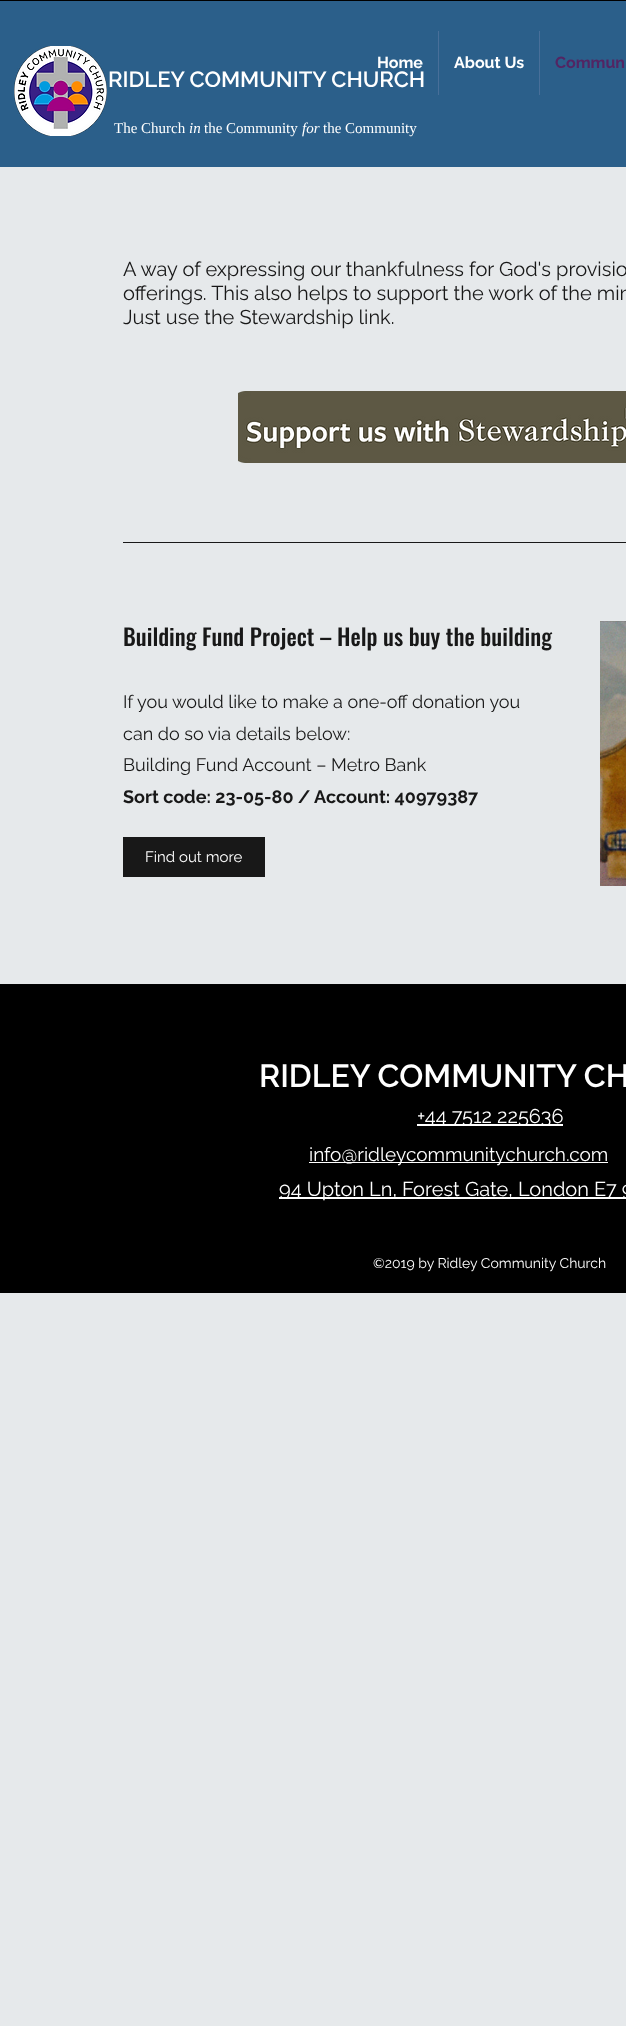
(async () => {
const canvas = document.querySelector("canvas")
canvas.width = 626
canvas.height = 2026
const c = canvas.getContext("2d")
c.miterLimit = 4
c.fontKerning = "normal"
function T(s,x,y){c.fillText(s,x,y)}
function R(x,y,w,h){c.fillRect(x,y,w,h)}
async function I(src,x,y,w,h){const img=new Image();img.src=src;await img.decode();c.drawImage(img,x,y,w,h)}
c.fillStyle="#e6e9eb"
R(0,0,626,2026)
c.fillStyle="#000"
R(0,0,626,1)
c.fillStyle="#2b5f8a"
R(0,1,626,166)
c.font="bold 16px Raleway"
c.fillStyle="#fff"
T("Home",377,68)
c.fillStyle="#486f99"
R(438,31,1,64)
c.fillStyle="#fff"
T("About Us",454,68)
c.fillStyle="#486f99"
R(539,31,1,64)
c.fillStyle="#532563"
T("Commun",555,68)
await I("1.png",14,46,93,90)
c.font="600 22px Raleway"
c.fillStyle="#fff"
T("RIDLEY COMMUNITY CHURCH",108,87)
c.font="15px Liberation Serif"
T("The Church",114,133)
c.font="italic 15px Liberation Serif"
T("in",189,133)
c.font="15px Liberation Serif"
T("the Community",204,133)
c.font="italic 15px Liberation Serif"
T("for",302,133)
c.font="15px Liberation Serif"
T("the Community",323,133)
c.font="20px Raleway"
c.fillStyle="#181818"
T("A way of expressing our thankfulness for God's provisio",123,276)
T("offerings. This also helps to support the work of the min",123,300)
T("Just use the Stewardship link.",123,324)
await I("2.png",238,391,388,72)
R(123,542,503,1)
c.font="500 23px Oswald"
T("Building Fund Project – Help us buy the building",123,646)
await I("3.png",600,621,26,265)
c.font="18px Raleway"
T("If you would like to make a one-off donation you",123,708)
T("can do so via details below:",123,740)
T("Building Fund Account – Metro Bank",123,771)
c.font="bold 18px Raleway"
T("Sort code: 23-05-80 / Account: 40979387",123,803)
R(123,837,142,40)
c.font="15px Raleway"
c.fillStyle="#fff"
T("Find out more",145,862)
c.fillStyle="#000"
R(0,985,626,308)
c.fillStyle="#040404"
R(0,984,626,1)
c.font="600 32px Raleway"
c.fillStyle="#fff"
T("RIDLEY COMMUNITY CH",259,1087)
R(417,1124,146,2)
c.font="20px Raleway"
T("+44 7512 225636",417,1123)
R(309,1162,299,1)
c.font="19px Raleway"
T("info@ridleycommunitychurch.com",309,1161)
R(279,1197,347,2)
c.font="20px Raleway"
T("94 Upton Ln, Forest Gate, London E7 9",279,1196)
c.font="14px Raleway"
T("©2019 by Ridley Community Church",373,1268)
})()
